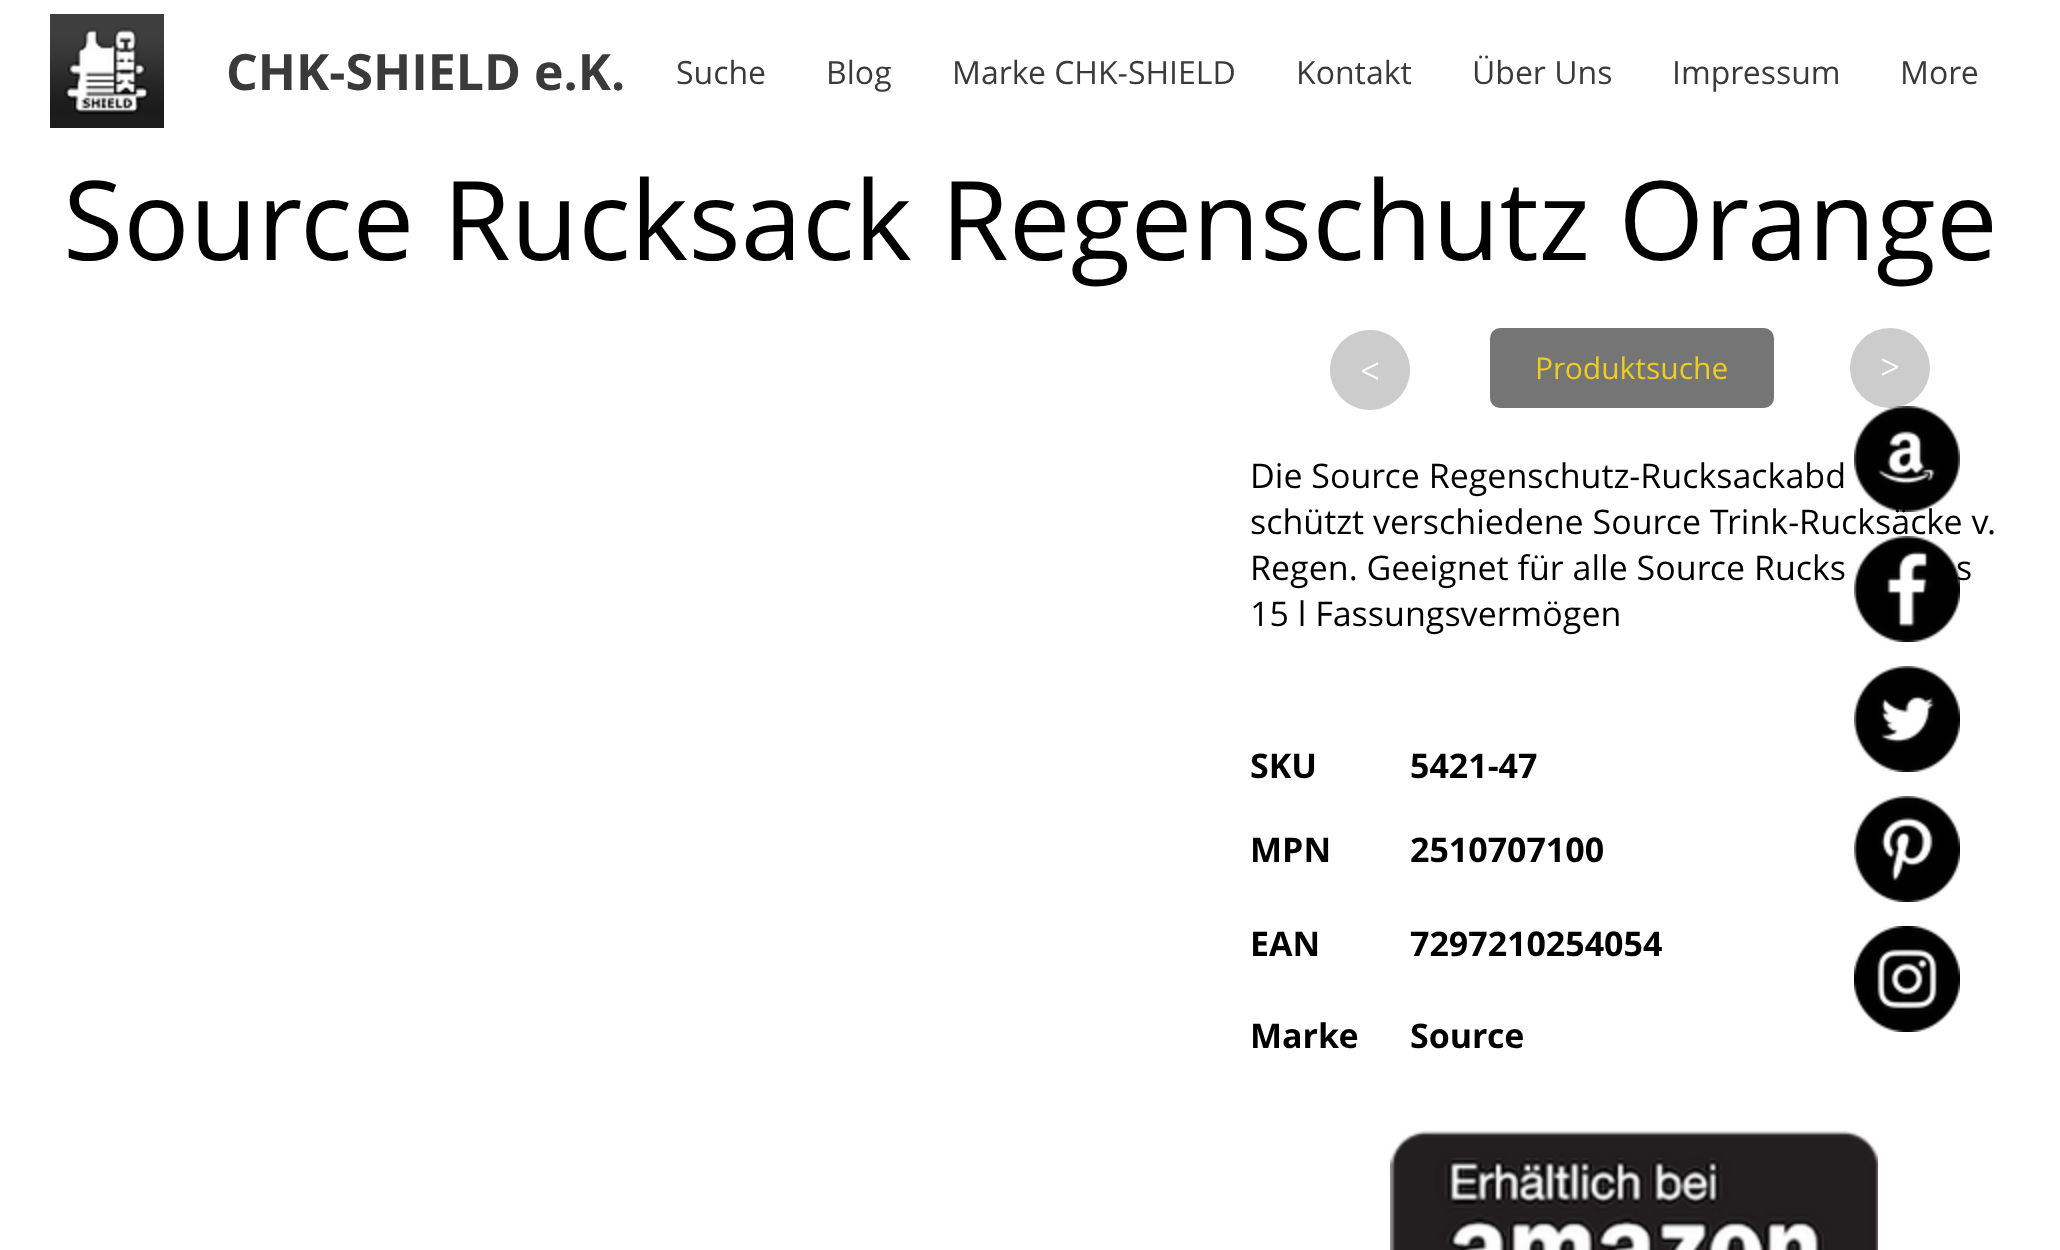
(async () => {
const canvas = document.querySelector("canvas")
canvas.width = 2060
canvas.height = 1250
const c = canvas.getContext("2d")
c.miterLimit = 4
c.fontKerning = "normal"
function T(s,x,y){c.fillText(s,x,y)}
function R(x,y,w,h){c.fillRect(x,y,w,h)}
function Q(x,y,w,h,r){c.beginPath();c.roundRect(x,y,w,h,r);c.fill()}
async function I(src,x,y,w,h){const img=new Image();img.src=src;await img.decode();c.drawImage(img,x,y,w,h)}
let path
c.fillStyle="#fff"
R(0,0,2060,1250)
await I("1.png",50,14,114,114)
c.font="bold 50px Open Sans"
c.fillStyle="#3a3a3a"
T("CHK-SHIELD e.K.",226,90)
c.font="32px Open Sans"
T("Suche",676,84)
T("Blog",826,84)
T("Marke CHK-SHIELD",952,84)
T("Kontakt",1296,84)
T("Über Uns",1472,84)
T("Impressum",1672,84)
T("More",1900,84)
c.font="110px Open Sans"
c.fillStyle="#000"
T("Source Rucksack Regenschutz Orange",63,260)
c.fillStyle="#ccc"
path = new Path2D("M1370 410c-22 0-40-18-40-40c0-22 18-40 40-40c22 0 40 18 40 40c0 22-18 40-40 40z")
c.fill(path)
c.font="36px 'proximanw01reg'"
c.fillStyle="#fff"
c.save()
c.translate(1379,359)
c.rotate(180 * Math.PI / 180)
c.fillText(">",0,0)
c.restore()
c.fillStyle="#767575"
Q(1490,328,284,80,10)
c.font="30px Open Sans"
c.fillStyle="#edcd1f"
T("Produktsuche",1535,379)
c.fillStyle="#ccc"
c.beginPath()
c.arc(1890,368,40,0,7)
c.fill()
c.font="36px 'proximanw01reg'"
c.fillStyle="#fff"
T(">",1881,379)
c.font="34px Open Sans"
c.fillStyle="#000"
T("Die Source Regenschutz-Rucksackabd",1250,488)
T("schützt verschiedene Source Trink-Rucksäcke v.",1250,534)
T("Regen. Geeignet für alle Source Rucks",1250,580)
T("s",1956,580)
T("15 l Fassungsvermögen",1250,626)
c.font="bold 34px Open Sans"
T("SKU",1250,778)
T("5421-47",1410,778)
T("MPN",1250,862)
T("2510707100",1410,862)
T("EAN",1250,956)
T("7297210254054",1410,956)
T("Marke",1250,1048)
T("Source",1410,1048)
await I("2.png",1390,1130,488,120)
await I("3.png",1854,406,106,106)
await I("4.png",1854,536,106,106)
await I("5.png",1854,666,106,106)
await I("6.png",1854,796,106,106)
await I("7.png",1854,926,106,106)
})()
